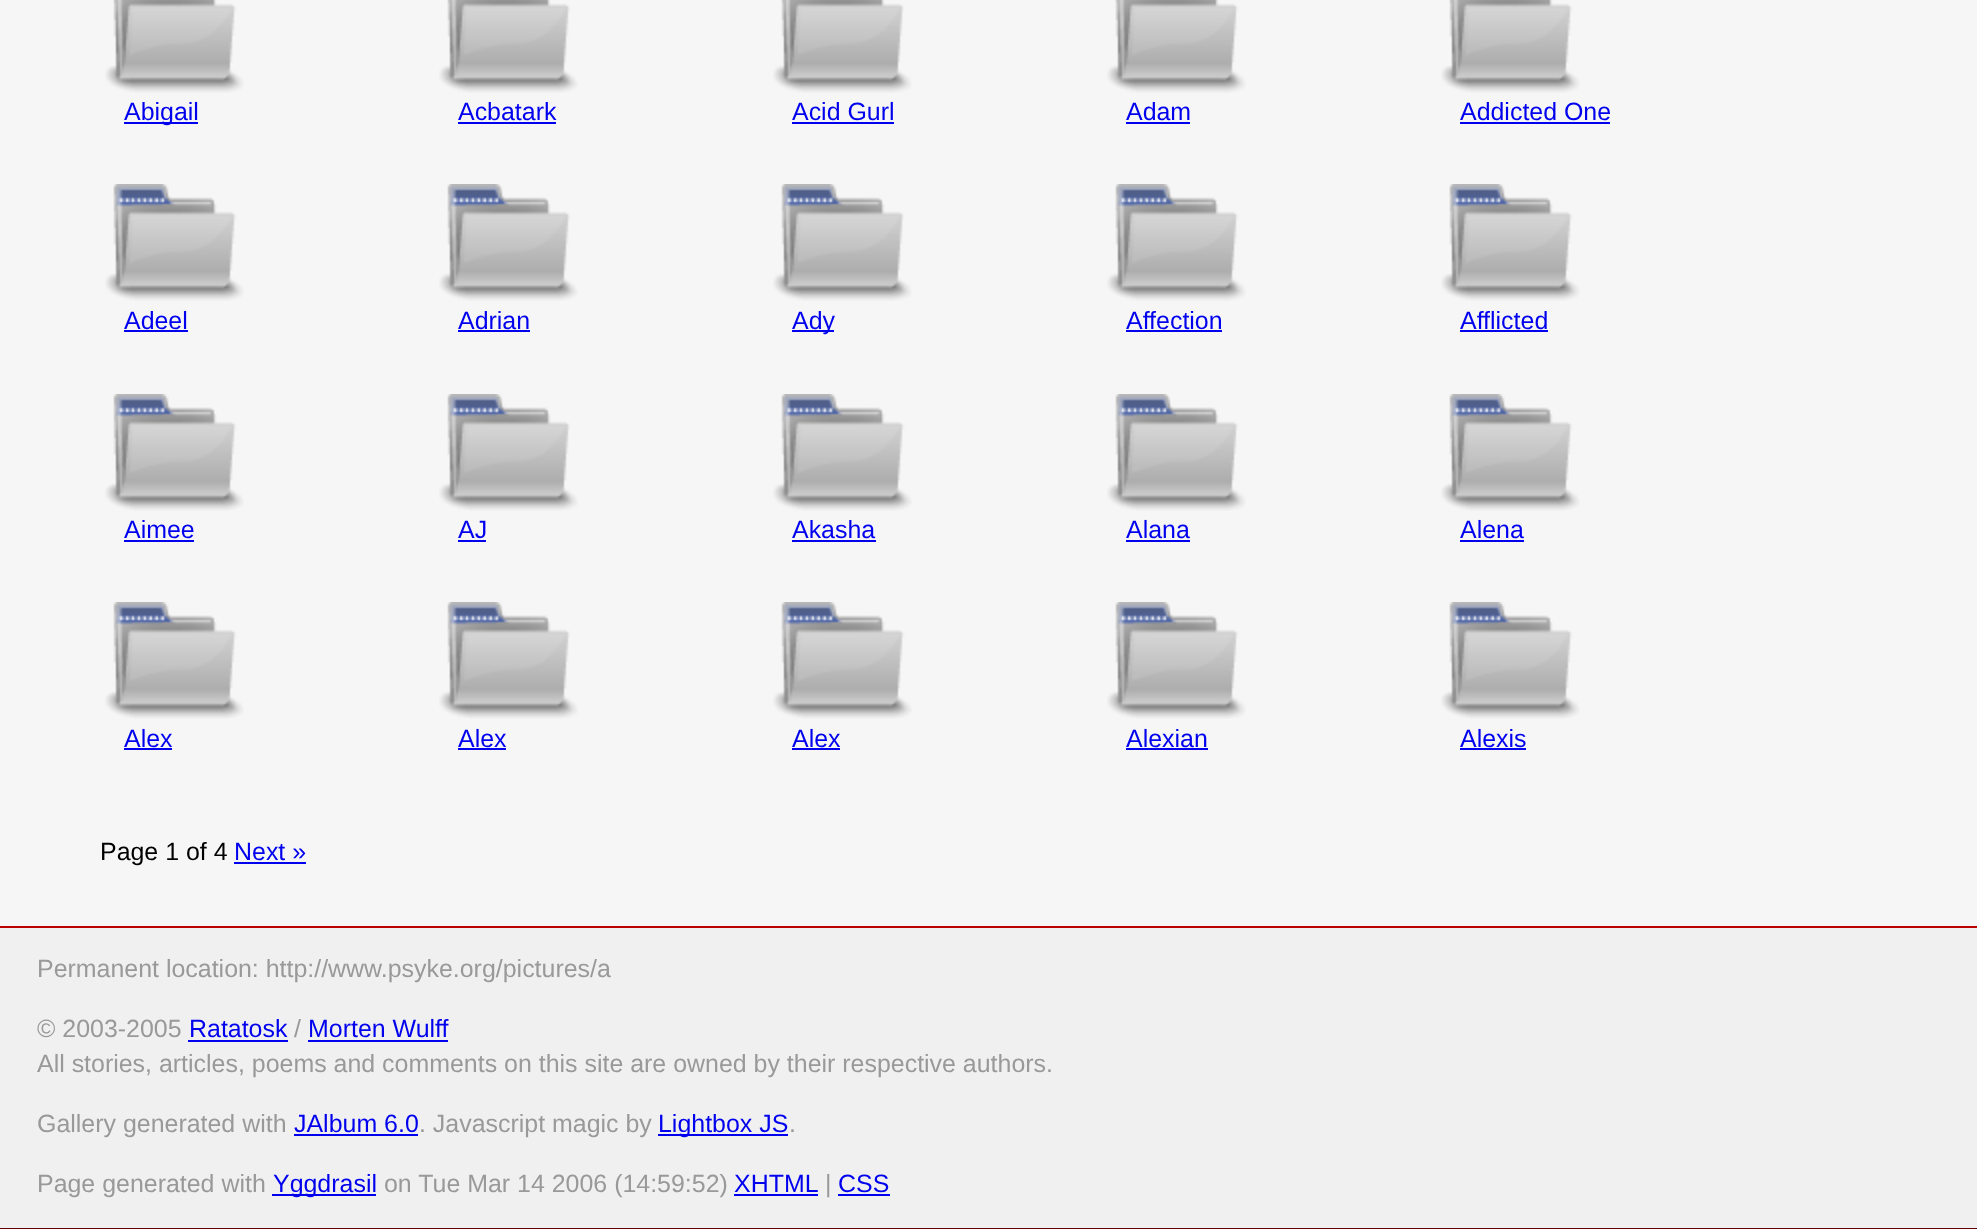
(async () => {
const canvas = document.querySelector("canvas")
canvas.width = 1977
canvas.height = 1229
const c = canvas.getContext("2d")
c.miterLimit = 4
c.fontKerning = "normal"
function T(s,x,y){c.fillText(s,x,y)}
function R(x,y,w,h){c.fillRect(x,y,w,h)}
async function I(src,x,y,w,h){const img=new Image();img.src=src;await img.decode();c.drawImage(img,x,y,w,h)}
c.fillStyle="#f6f6f6"
R(0,0,1977,1229)
await I("1.png",105,0,139,93)
c.fillStyle="#00e"
R(124,122,74,2)
c.font="24.95px Liberation Sans"
T("Abigail",124,120)
await I("1.png",439,0,139,93)
T("Acbatark",458,120)
R(458,122,98,2)
await I("1.png",773,0,139,93)
T("Acid Gurl",792,120)
R(792,122,102,2)
await I("1.png",1107,0,139,93)
T("Adam",1126,120)
R(1126,122,64,2)
await I("1.png",1441,0,139,93)
T("Addicted One",1460,120)
R(1460,122,150,2)
await I("2.png",105,184,139,117)
T("Adeel",124,329)
R(124,330,64,2)
await I("2.png",439,184,139,117)
T("Adrian",458,329)
R(458,330,72,2)
await I("2.png",773,184,139,117)
R(792,330,42,2)
T("Ady",792,329)
await I("2.png",1107,184,139,117)
T("Affection",1126,329)
R(1126,330,96,2)
await I("2.png",1441,184,139,117)
T("Afflicted",1460,329)
R(1460,330,88,2)
await I("2.png",105,394,139,117)
T("Aimee",124,538)
R(124,540,70,2)
await I("2.png",439,394,139,117)
T("AJ",458,538)
R(458,540,28,2)
await I("2.png",773,394,139,117)
T("Akasha",792,538)
R(792,540,84,2)
await I("2.png",1107,394,139,117)
T("Alana",1126,538)
R(1126,540,64,2)
await I("2.png",1441,394,139,117)
T("Alena",1460,538)
R(1460,540,64,2)
await I("2.png",105,602,139,117)
T("Alex",124,747)
R(124,748,48,2)
await I("2.png",439,602,139,117)
T("Alex",458,747)
R(458,748,48,2)
await I("2.png",773,602,139,117)
T("Alex",792,747)
R(792,748,48,2)
await I("2.png",1107,602,139,117)
T("Alexian",1126,747)
R(1126,748,82,2)
await I("2.png",1441,602,139,117)
T("Alexis",1460,747)
R(1460,748,66,2)
c.fillStyle="#000"
T("Page 1 of 4",100,860)
c.fillStyle="#00e"
T("Next »",234,860)
R(234,862,72,2)
c.fillStyle="#f0f0f0"
R(0,928,1977,300)
c.fillStyle="#b00"
R(0,926,1977,2)
c.fillStyle="#600"
R(0,1228,1977,1)
c.fillStyle="#999"
T("Permanent location: http://www.psyke.org/pictures/a",37,977)
T("© 2003-2005",37,1037)
c.fillStyle="#00e"
T("Ratatosk",189,1037)
R(188,1040,100,2)
c.fillStyle="#999"
T("/",294,1037)
c.fillStyle="#00e"
T("Morten Wulff",308,1037)
R(308,1040,140,2)
c.fillStyle="#999"
T("All stories, articles, poems and comments on this site are owned by their respective authors.",37,1072)
T("Gallery generated with",37,1132)
c.fillStyle="#00e"
T("JAlbum 6.0",294,1132)
R(294,1134,124,2)
c.fillStyle="#999"
T(". Javascript magic by",419,1132)
c.fillStyle="#00e"
R(658,1134,130,2)
T("Lightbox JS",658,1132)
c.fillStyle="#999"
T(".",789,1132)
T("Page generated with",37,1192)
c.fillStyle="#00e"
R(272,1194,104,2)
T("Yggdrasil",273,1192)
c.fillStyle="#999"
T("on Tue Mar 14 2006 (14:59:52)",384,1192)
c.fillStyle="#00e"
T("XHTML",734,1192)
R(734,1194,84,2)
c.fillStyle="#999"
T("|",825,1192)
c.fillStyle="#00e"
T("CSS",838,1192)
R(838,1194,52,2)
})()
